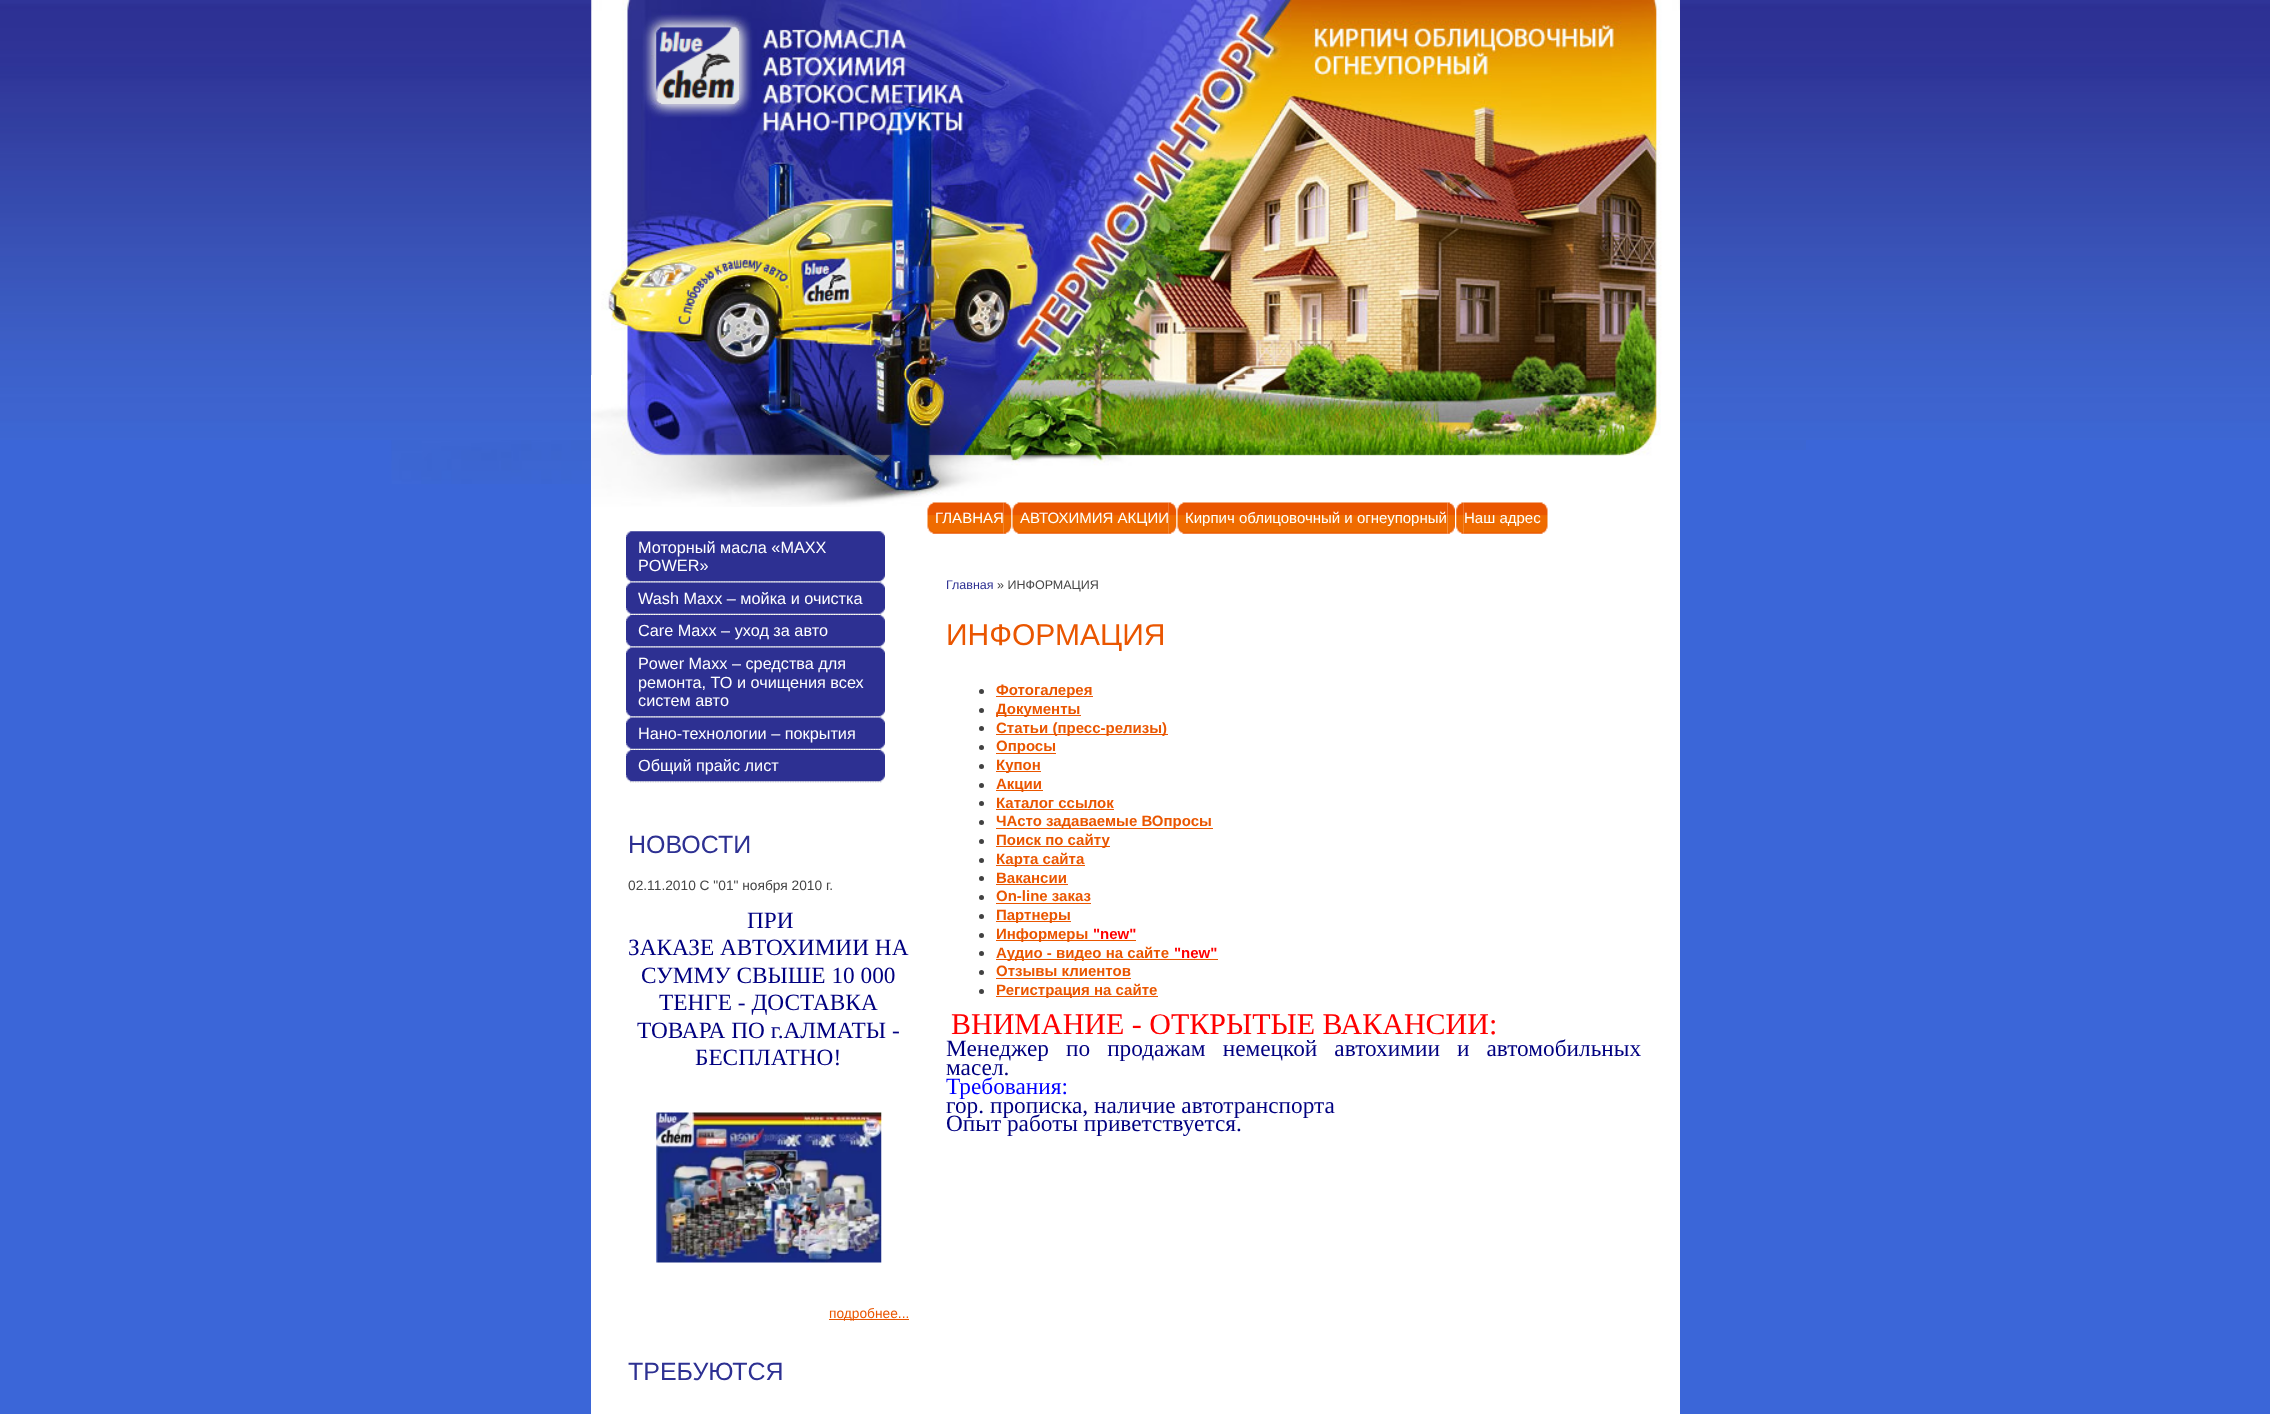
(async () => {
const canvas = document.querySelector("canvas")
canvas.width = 2270
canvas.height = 1414
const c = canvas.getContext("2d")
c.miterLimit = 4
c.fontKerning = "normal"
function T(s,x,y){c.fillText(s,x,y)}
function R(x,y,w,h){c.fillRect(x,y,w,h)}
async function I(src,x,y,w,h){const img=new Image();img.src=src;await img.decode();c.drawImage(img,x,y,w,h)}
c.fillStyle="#3b66d8"
R(0,0,2270,1414)
await I("1.png",0,0,2270,440)
await I("2.png",391,440,200,44)
c.fillStyle="#3c66d2"
R(1680,440,126,10)
await I("3.png",591,0,1089,375)
await I("4.png",643,15,109,102)
c.fillStyle="#fff"
R(591,375,1089,1039)
await I("5.png",591,375,1070,132)
await I("6.png",630,581,252,2)
await I("7.png",626,531,259,6)
await I("8.png",626,575,259,7)
c.fillStyle="#2d3092"
R(626,537,259,38)
c.font="16.25px Liberation Sans"
c.fillStyle="#fff"
T("Моторный масла «MAXX",638,553)
T("POWER»",638,571)
await I("9.png",630,613,252,2)
await I("10.png",626,582,259,6)
await I("11.png",626,608,259,6)
c.fillStyle="#2d3092"
R(626,588,259,20)
c.fillStyle="#fff"
T("Wash Maxx – мойка и очистка",638,604)
await I("6.png",630,646,252,2)
await I("12.png",626,615,259,6)
await I("8.png",626,640,259,7)
c.fillStyle="#2d3092"
R(626,621,259,19)
c.fillStyle="#fff"
T("Care Maxx – уход за авто",638,636)
await I("6.png",630,716,252,2)
await I("10.png",626,647,259,6)
await I("8.png",626,710,259,7)
c.fillStyle="#2d3092"
R(626,653,259,57)
c.fillStyle="#fff"
T("Power Maxx – средства для",638,669)
T("ремонта, ТО и очищения всех",638,688)
T("систем авто",638,706)
await I("9.png",630,748,252,2)
await I("10.png",626,717,259,6)
await I("11.png",626,743,259,6)
c.fillStyle="#2d3092"
R(626,723,259,20)
c.fillStyle="#fff"
T("Нано-технологии – покрытия",638,739)
await I("6.png",630,781,252,2)
await I("12.png",626,750,259,6)
await I("8.png",626,775,259,7)
c.fillStyle="#2d3092"
R(626,756,259,19)
c.fillStyle="#fff"
T("Общий прайс лист",638,771)
c.font="25px Liberation Sans"
c.fillStyle="#2d3092"
T("НОВОСТИ",628,853)
c.font="13.75px Liberation Sans"
c.fillStyle="#454545"
T("02.11.2010 C \"01\" ноября 2010 г.",628,890)
c.font="23.3px Liberation Serif"
c.fillStyle="#000080"
T("ПРИ",747,928)
T("ЗАКАЗЕ АВТОХИМИИ НА",628,955)
T("СУММУ СВЫШЕ 10 000",641,983)
T("ТЕНГЕ - ДОСТАВКА",659,1010)
T("ТОВАРА ПО г.АЛМАТЫ -",637,1038)
T("БЕСПЛАТНО!",695,1065)
await I("13.png",656,1112,226,151)
c.fillStyle="#ea5600"
R(829,1319,80,1)
c.font="13.75px Liberation Sans"
T("подробнее...",829,1318)
c.font="25px Liberation Sans"
c.fillStyle="#2d3092"
T("ТРЕБУЮТСЯ",628,1380)
await I("14.png",927,502,8,32)
await I("15.png",1003,502,9,32)
await I("16.png",935,502,69,32)
c.font="15px Liberation Sans"
c.fillStyle="#fff"
T("ГЛАВНАЯ",935,523)
await I("17.png",1012,502,8,32)
await I("15.png",1168,502,9,32)
await I("18.png",1020,502,149,32)
T("АВТОХИМИЯ АКЦИИ",1020,523)
await I("17.png",1177,502,8,32)
await I("19.png",1447,502,8,32)
await I("20.png",1185,502,263,32)
T("Кирпич облицовочный и огнеупорный",1185,523)
await I("21.png",1456,502,8,32)
await I("22.png",1540,502,8,32)
await I("23.png",1463,502,77,32)
T("Наш адрес",1464,523)
c.font="12.5px Liberation Sans"
c.fillStyle="#2d3092"
T("Главная",946,589)
c.fillStyle="#454545"
T("» ИНФОРМАЦИЯ",997,589)
c.font="30px Liberation Sans"
c.fillStyle="#ea5600"
T("ИНФОРМАЦИЯ",946,645)
c.fillStyle="#424242"
c.beginPath()
c.arc(981.5,691.5,2.5,0,7)
c.fill()
c.fillStyle="#ea5600"
R(996,696,97,1)
c.font="bold 15px Liberation Sans"
T("Фотогалерея",996,695)
c.fillStyle="#424242"
c.beginPath()
c.arc(981.5,710.5,2.5,0,7)
c.fill()
c.fillStyle="#ea5600"
R(996,715,85,1)
T("Документы",996,714)
c.fillStyle="#424242"
c.beginPath()
c.arc(981.5,728.5,2.5,0,7)
c.fill()
c.fillStyle="#ea5600"
R(996,734,172,1)
T("Статьи (пресс-релизы)",996,733)
c.fillStyle="#424242"
c.beginPath()
c.arc(981.5,747.5,2.5,0,7)
c.fill()
c.fillStyle="#ea5600"
R(996,753,60,1)
T("Опросы",996,751)
c.fillStyle="#424242"
c.beginPath()
c.arc(981.5,766.5,2.5,0,7)
c.fill()
c.fillStyle="#ea5600"
R(996,771,45,1)
T("Купон",996,770)
c.fillStyle="#424242"
c.beginPath()
c.arc(981.5,785.5,2.5,0,7)
c.fill()
c.fillStyle="#ea5600"
R(996,790,47,1)
T("Акции",996,789)
c.fillStyle="#424242"
c.beginPath()
c.arc(981.5,803.5,2.5,0,7)
c.fill()
c.fillStyle="#ea5600"
T("Каталог ссылок",996,808)
R(996,809,118,1)
c.fillStyle="#424242"
c.beginPath()
c.arc(981.5,822.5,2.5,0,7)
c.fill()
c.fillStyle="#ea5600"
R(996,828,217,1)
T("ЧАсто задаваемые ВОпросы",996,826)
c.fillStyle="#424242"
c.beginPath()
c.arc(981.5,841.5,2.5,0,7)
c.fill()
c.fillStyle="#ea5600"
R(996,846,114,1)
T("Поиск по сайту",996,845)
c.fillStyle="#424242"
c.beginPath()
c.arc(981.5,860.5,2.5,0,7)
c.fill()
c.fillStyle="#ea5600"
R(996,865,89,1)
T("Карта сайта",996,864)
c.fillStyle="#424242"
c.beginPath()
c.arc(981.5,878.5,2.5,0,7)
c.fill()
c.fillStyle="#ea5600"
T("Вакансии",996,883)
R(996,884,72,1)
c.fillStyle="#424242"
c.beginPath()
c.arc(981.5,897.5,2.5,0,7)
c.fill()
c.fillStyle="#ea5600"
T("On-line заказ",996,901)
R(996,903,95,1)
c.fillStyle="#424242"
c.beginPath()
c.arc(981.5,916.5,2.5,0,7)
c.fill()
c.fillStyle="#ea5600"
R(996,921,75,1)
T("Партнеры",996,920)
c.fillStyle="#424242"
c.beginPath()
c.arc(981.5,935.5,2.5,0,7)
c.fill()
c.fillStyle="#ea5600"
R(996,940,140,1)
T("Информеры",996,939)
c.fillStyle="#f00"
T("\"new\"",1093,939)
c.fillStyle="#424242"
c.beginPath()
c.arc(981.5,953.5,2.5,0,7)
c.fill()
c.fillStyle="#ea5600"
R(996,959,222,1)
T("Аудио - видео на сайте",996,958)
c.fillStyle="#f00"
T("\"new\"",1174,958)
c.fillStyle="#424242"
c.beginPath()
c.arc(981.5,972.5,2.5,0,7)
c.fill()
c.fillStyle="#ea5600"
T("Отзывы клиентов",996,976)
R(996,978,135,1)
c.fillStyle="#424242"
c.beginPath()
c.arc(981.5,991.5,2.5,0,7)
c.fill()
c.fillStyle="#ea5600"
R(996,996,162,1)
T("Регистрация на сайте",996,995)
c.font="30px Liberation Serif"
c.fillStyle="#f00"
T("ВНИМАНИЕ - ОТКРЫТЫЕ ВАКАНСИИ:",951,1034)
c.wordSpacing="11.25px"
c.font="23.3px Liberation Serif"
c.fillStyle="#000080"
T("Менеджер по продажам немецкой автохимии и автомобильных",946,1056)
c.wordSpacing="0px"
T("масел.",946,1075)
c.fillStyle="#00f"
T("Требования:",946,1094)
c.fillStyle="#000080"
T("гор. прописка, наличие автотранспорта",946,1113)
T("Опыт работы приветствуется.",946,1131)
})()
